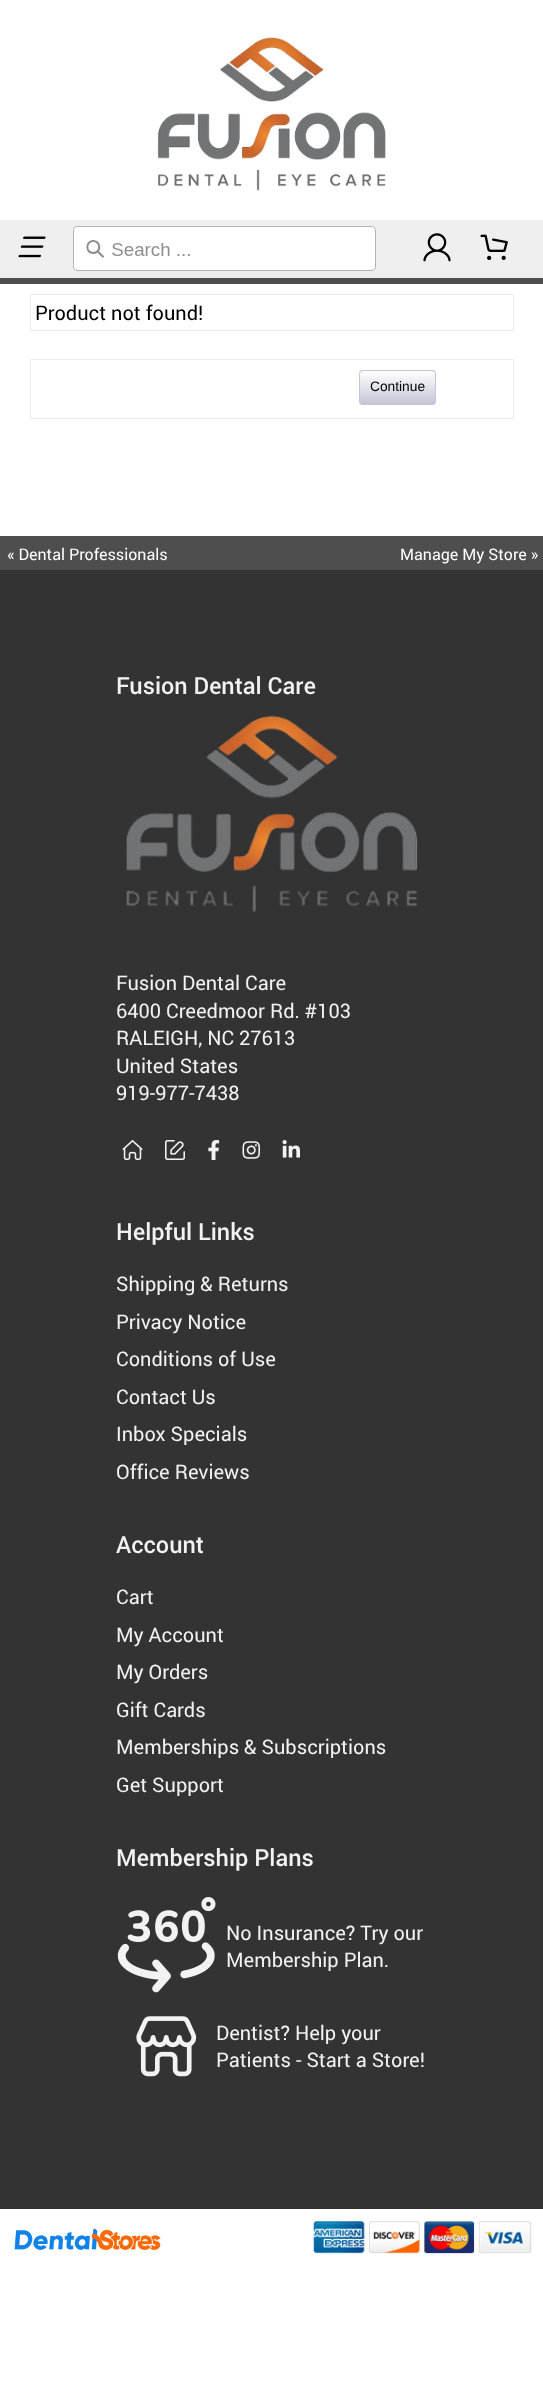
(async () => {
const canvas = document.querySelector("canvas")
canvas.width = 543
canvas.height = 2393
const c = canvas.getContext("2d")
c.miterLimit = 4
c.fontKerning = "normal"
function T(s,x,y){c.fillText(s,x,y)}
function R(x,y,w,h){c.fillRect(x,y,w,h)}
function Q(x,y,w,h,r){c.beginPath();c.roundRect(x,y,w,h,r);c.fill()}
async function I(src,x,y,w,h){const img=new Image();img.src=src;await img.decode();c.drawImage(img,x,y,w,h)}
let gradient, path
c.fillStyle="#fff"
R(0,0,543,2393)
await I("1.png",157,37,229,154)
c.fillStyle="#efefef"
R(0,220,543,58)
await I("2.png",18,236,28,22)
c.fillStyle="#fff"
Q(73,226,303,45,4)
await I("3.png",86,240,104,18)
c.beginPath()
c.roundRect(73.5,226.5,302,44,3.5)
c.strokeStyle="#b3b3b3"
c.stroke()
await I("4.png",423,233,28,29)
await I("5.png",480,234,28,26)
c.fillStyle="#4e4e4e"
R(0,278,543,6)
c.strokeStyle="#ededed"
c.strokeRect(30.5,294.5,483,36)
c.font="20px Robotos"
c.fillStyle="#000"
T("Product not found!",35,320)
c.strokeRect(30.5,359.5,483,59)
c.fillStyle="#c6c5d7"
Q(359,370,77,35,4)
c.save()
c.beginPath()
c.roundRect(359,370,77,35,4)
c.clip()
gradient = c.createLinearGradient(398,371,398,404)
gradient.addColorStop(0,"#fff")
gradient.addColorStop(1,"#ffffff00")
c.fillStyle = gradient
R(359,371,77,32)
c.restore()
c.fillStyle="#ffffff66"
path = new Path2D("M362 372h70c2 0 3 2 3 3c0-7-9-4-14-4h-47c-5 0-14-3-14 4c0-1 1-3 2-3z")
c.fill(path)
c.beginPath()
c.roundRect(359.5,370.5,76,34,3.5)
c.strokeStyle="#c6c5d7"
c.stroke()
c.font="13.75px Liberation Sans"
c.fillStyle="#000"
T("Continue",370,391)
c.fillStyle="#4e4e4e"
R(0,536,543,34)
c.font="16px Robotos"
c.fillStyle="#fff"
T("« Dental Professionals",7,560)
T("Manage My Store »",400,560)
c.fillStyle="#333"
R(0,570,543,1639)
c.font="500 23.5px Roboto"
c.fillStyle="#f2f2f2"
T("Fusion Dental Care",116,694)
await I("6.png",126,715,292,197)
c.font="20px Robotos"
T("Fusion Dental Care",116,990)
T("6400 Creedmoor Rd. #103",116,1018)
T("RALEIGH, NC 27613",116,1045)
T("United States",116,1073)
T("919-977-7438",116,1100)
await I("7.png",122,1140,21,20)
await I("8.png",165,1140,20,20)
await I("9.png",208,1140,12,20)
await I("10.png",242,1141,18,18)
await I("11.png",282,1140,18,18)
c.font="500 23.5px Roboto"
T("Helpful Links",116,1240)
c.font="20px Robotos"
T("Shipping & Returns",116,1291)
T("Privacy Notice",116,1329)
T("Conditions of Use",116,1366)
T("Contact Us",116,1404)
T("Inbox Specials",116,1441)
T("Office Reviews",116,1479)
c.font="500 23.5px Roboto"
T("Account",116,1553)
c.font="20px Robotos"
T("Cart",116,1604)
T("My Account",116,1642)
T("My Orders",116,1679)
T("Gift Cards",116,1717)
T("Memberships & Subscriptions",116,1754)
T("Get Support",116,1792)
c.font="500 23.5px Roboto"
T("Membership Plans",116,1866)
await I("12.png",117,1897,99,96)
c.font="20px Robotos"
T("No Insurance? Try our",226,1940)
T("Membership Plan.",226,1967)
await I("13.png",136,2016,61,61)
T("Dentist? Help your",216,2040)
T("Patients - Start a Store!",216,2067)
await I("14.png",14,2228,147,22)
await I("15.png",313,2221,219,33)
})()
